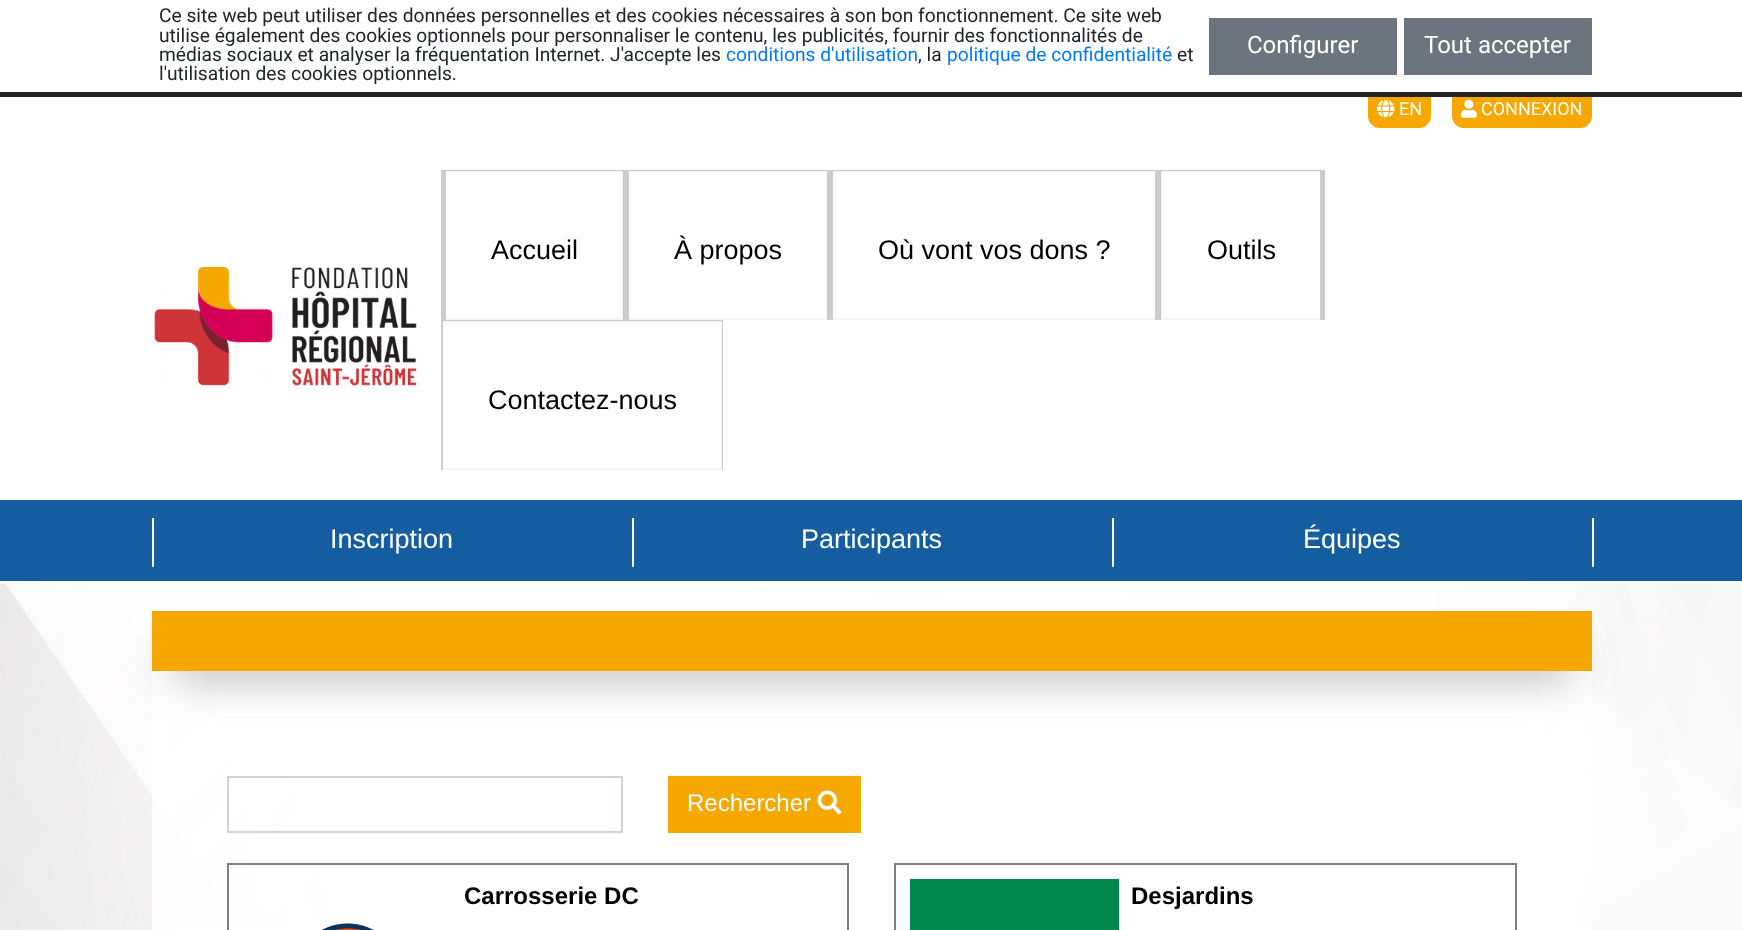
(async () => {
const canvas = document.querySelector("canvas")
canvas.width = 1742
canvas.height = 930
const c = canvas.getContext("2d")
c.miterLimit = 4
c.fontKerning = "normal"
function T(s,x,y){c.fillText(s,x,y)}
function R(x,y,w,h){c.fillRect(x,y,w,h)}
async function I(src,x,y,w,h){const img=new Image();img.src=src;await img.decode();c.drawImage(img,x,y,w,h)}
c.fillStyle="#fff"
R(0,0,1742,930)
await I("1.png",0,583,1742,347)
c.fillStyle="#f6a800"
c.beginPath()
c.roundRect(1369,93,61,34,[0,0,11,11])
c.fill()
c.strokeStyle="#f6a800"
c.lineWidth=2
c.stroke()
c.beginPath()
c.roundRect(1453,93,138,34,[0,0,11,11])
c.fill()
c.stroke()
c.fillStyle="#212529"
R(0,92,1742,5)
c.font="19.2px Roboto"
T("Ce site web peut utiliser des données personnelles et des cookies nécessaires à son bon fonctionnement. Ce site web",159,22)
T("utilise également des cookies optionnels pour personnaliser le contenu, les publicités, fournir des fonctionnalités de",159,42)
T("médias sociaux et analyser la fréquentation Internet. J'accepte les",159,61)
c.fillStyle="#007bff"
T("conditions d'utilisation",726,61)
c.fillStyle="#212529"
T(", la",918,61)
c.fillStyle="#007bff"
T("politique de confidentialité",947,61)
c.fillStyle="#212529"
T("et",1177,61)
T("l'utilisation des cookies optionnels.",159,80)
c.fillStyle="#6c757d"
R(1209,18,188,57)
c.font="24px Roboto"
c.fillStyle="#fff"
T("Configurer",1247,53)
c.fillStyle="#6c757d"
R(1404,18,188,57)
c.fillStyle="#fff"
T("Tout accepter",1424,53)
await I("2.png",1377,100,18,18)
c.font="18px Roboto"
T("EN",1399,115)
await I("3.png",1461,99,16,19)
T("CONNEXION",1481,115)
await I("4.png",154,267,263,119)
c.fillStyle="#ccc"
R(441,170,3,150)
c.strokeStyle="#ccc"
c.strokeRect(445,171,178,148)
c.fillStyle="#ffffffcc"
R(446,171,177,149)
c.font="27px Liberation Sans"
c.fillStyle="#000"
T("Accueil",491,259)
c.fillStyle="#ccc"
R(624,170,3,150)
c.strokeRect(628,171,199,148)
c.fillStyle="#ffffffcc"
R(629,171,198,149)
c.fillStyle="#000"
T("À propos",674,259)
c.fillStyle="#ccc"
R(828,170,3,150)
c.strokeRect(832,171,324,148)
c.fillStyle="#ffffffcc"
R(833,171,322,149)
c.fillStyle="#000"
T("Où vont vos dons ?",878,259)
c.fillStyle="#ccc"
R(1157,170,3,150)
c.strokeRect(1161,171,160,148)
c.fillStyle="#ffffffcc"
R(1161,171,159,149)
c.fillStyle="#000"
T("Outils",1207,259)
c.fillStyle="#ccc"
R(1322,170,3,150)
c.strokeRect(442,321,280,148)
c.fillStyle="#ffffffcc"
R(443,321,279,149)
c.fillStyle="#000"
T("Contactez-nous",488,409)
c.fillStyle="#145da0"
R(0,500,1742,81)
c.fillStyle="#fff"
R(152,518,2,49)
T("Inscription",330,548)
R(632,518,2,49)
T("Participants",801,548)
R(1112,518,2,49)
T("Équipes",1303,548)
R(1592,518,2,49)
c.fillStyle="#ffffffcc"
R(152,671,1440,259)
c.fillStyle="#656565"
c.filter="blur(22.5px)"
c.beginPath()
c.rect(174,656,1395,15)
c.fill()
c.filter="none"
c.fillStyle="#f6a800"
R(152,611,1440,60)
c.strokeStyle="#ced4da"
c.strokeRect(228,777,394,55)
R(668,776,193,57)
c.font="24px Liberation Sans"
c.fillStyle="#fff"
T("Rechercher",687,811)
await I("5.png",817,790,25,25)
c.strokeStyle="#808080"
c.strokeRect(228,864,620,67)
c.font="bold 24px Liberation Sans"
c.fillStyle="#000"
T("Carrosserie DC",464,904)
await I("6.png",321,923,53,7)
c.strokeRect(895,864,621,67)
c.fillStyle="#00874e"
R(910,879,209,51)
c.fillStyle="#000"
T("Desjardins",1131,904)
})()
